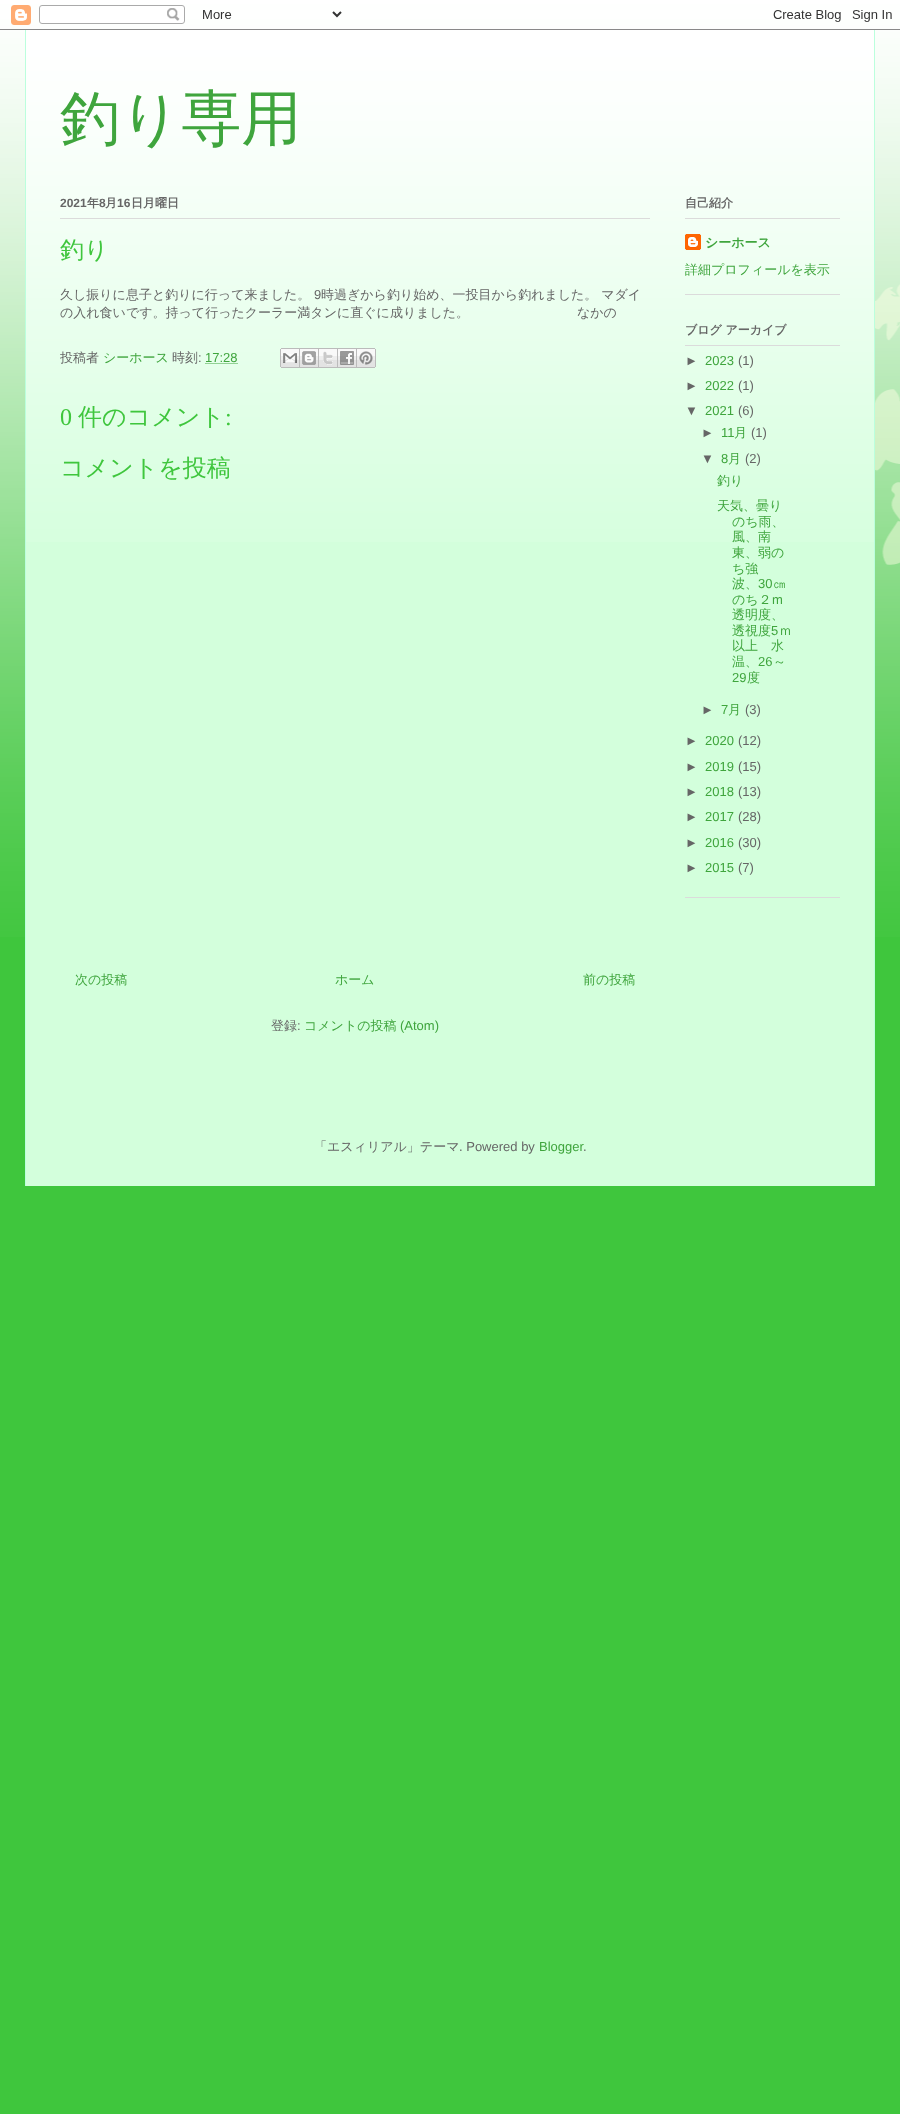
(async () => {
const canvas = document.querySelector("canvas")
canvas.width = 900
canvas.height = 2114
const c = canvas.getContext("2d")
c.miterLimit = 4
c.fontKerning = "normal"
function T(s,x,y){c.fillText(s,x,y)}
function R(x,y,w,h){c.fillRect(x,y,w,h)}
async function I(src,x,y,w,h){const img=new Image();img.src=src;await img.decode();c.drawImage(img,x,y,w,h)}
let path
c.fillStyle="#3fc63d"
R(0,0,900,2114)
await I("1.png",0,0,900,937)
await I("2.png",0,5,900,25)
c.fillStyle="#d3ffdc"
R(26,37,848,1149)
await I("3.png",26,30,848,512)
c.fillStyle="#bfd"
R(874,30,1,1156)
R(25,30,1,1156)
c.font="500 60px WenQuanYi Zen Hei"
c.fillStyle="#3fa53d"
T("釣り専用",60,139)
c.fillStyle="#dbdbdb"
R(60,218,590,1)
c.font="bold 12px Liberation Sans"
c.fillStyle="#666"
T("2021",60,207)
c.font="bold 12px WenQuanYi Zen Hei"
T("年",87,207)
c.font="bold 12px Liberation Sans"
T("8",99,207)
c.font="bold 12px WenQuanYi Zen Hei"
T("月",105,207)
c.font="bold 12px Liberation Sans"
T("16",117,207)
c.font="bold 12px WenQuanYi Zen Hei"
T("日月曜日",131,207)
c.font="500 24px WenQuanYi Zen Hei"
c.fillStyle="#3fc63d"
T("釣り",60,258)
c.font="500 13px WenQuanYi Zen Hei"
c.fillStyle="#666"
T("久し振りに息子と釣りに行って来ました。",60,299)
c.font="13px Liberation Sans"
T("9",314,299)
c.font="500 13px WenQuanYi Zen Hei"
T("時過ぎから釣り始め、一投目から釣れました。 マダイ",321,299)
T("の入れ食いです。持って行ったクーラー満タンに直ぐに成りました。",60,317)
T("なかの",577,317)
T("投稿者",60,362)
c.fillStyle="#3fa53d"
T("シーホース",103,362)
c.fillStyle="#666"
T("時刻",172,362)
c.font="13px Liberation Sans"
T(":",198,362)
c.fillStyle="#3fa53d"
T("17:28",205,362)
path = new Path2D("M205.5 363.5h32.5")
c.strokeStyle="#3fa53d"
c.setLineDash([1,1])
c.stroke(path)
await I("4.png",280,348,20,20)
await I("5.png",300,348,19,20)
await I("6.png",319,348,19,20)
await I("7.png",338,348,19,20)
await I("8.png",357,348,19,20)
c.font="24px Liberation Serif"
c.fillStyle="#3fc63d"
T("0",60,425)
c.font="500 24px WenQuanYi Zen Hei"
T("件のコメント",78,425)
c.font="24px Liberation Serif"
T(":",225,425)
c.font="500 24px WenQuanYi Zen Hei"
T("コメントを投稿",60,476)
c.font="500 13px WenQuanYi Zen Hei"
c.fillStyle="#3fa53d"
T("次の投稿",75,984)
T("ホーム",335,984)
T("前の投稿",583,984)
c.fillStyle="#666"
T("登録",271,1030)
c.font="13px Liberation Sans"
T(":",297,1030)
c.font="500 13px WenQuanYi Zen Hei"
c.fillStyle="#3fa53d"
T("コメントの投稿",304,1030)
c.font="13px Liberation Sans"
T("(Atom)",400,1030)
c.fillStyle="#dbdbdb"
R(685,294,155,1)
R(685,218,155,1)
c.font="bold 12px WenQuanYi Zen Hei"
c.fillStyle="#666"
T("自己紹介",685,207)
await I("9.png",685,234,16,16)
c.font="bold 13px WenQuanYi Zen Hei"
c.fillStyle="#3fa53d"
T("シーホース",705,247)
c.font="500 13px WenQuanYi Zen Hei"
T("詳細プロフィールを表示",685,274)
c.fillStyle="#dbdbdb"
R(685,897,155,1)
R(685,345,155,1)
c.font="bold 12px WenQuanYi Zen Hei"
c.fillStyle="#666"
T("ブログ アーカイブ",685,334)
c.font="13px Liberation Sans"
T("►",685,365)
c.fillStyle="#3fa53d"
T("2023",705,365)
c.fillStyle="#666"
T("(1)",738,365)
T("►",685,390)
c.fillStyle="#3fa53d"
T("2022",705,390)
c.fillStyle="#666"
T("(1)",738,390)
T("▼",685,415)
c.fillStyle="#3fa53d"
T("2021",705,415)
c.fillStyle="#666"
T("(6)",738,415)
T("►",701,437)
c.fillStyle="#3fa53d"
T("11",721,437)
c.font="500 13px WenQuanYi Zen Hei"
T("月",734,437)
c.font="13px Liberation Sans"
c.fillStyle="#666"
T("(1)",751,437)
T("▼",701,463)
c.fillStyle="#3fa53d"
T("8",721,463)
c.font="500 13px WenQuanYi Zen Hei"
T("月",728,463)
c.font="13px Liberation Sans"
c.fillStyle="#666"
T("(2)",745,463)
c.font="500 13px WenQuanYi Zen Hei"
c.fillStyle="#3fa53d"
T("釣り",717,485)
T("天気、曇り",717,510)
T("のち雨、",732,526)
T("風、南",732,541)
T("東、弱の",732,557)
T("ち強",732,573)
T("波、",732,588)
c.font="13px Liberation Sans"
T("30",758,588)
c.font="500 13px WenQuanYi Zen Hei"
T("㎝",773,588)
T("のち２",732,604)
c.font="13px Liberation Sans"
T("m",772,604)
c.font="500 13px WenQuanYi Zen Hei"
T("透明度、",732,619)
T("透視度",732,635)
c.font="13px Liberation Sans"
T("5",771,635)
c.font="500 13px WenQuanYi Zen Hei"
T("ｍ",779,635)
T("以上　水",732,650)
T("温、",732,666)
c.font="13px Liberation Sans"
T("26",758,666)
c.font="500 13px WenQuanYi Zen Hei"
T("～",773,666)
c.font="13px Liberation Sans"
T("29",732,682)
c.font="500 13px WenQuanYi Zen Hei"
T("度",747,682)
c.font="13px Liberation Sans"
c.fillStyle="#666"
T("►",701,714)
c.fillStyle="#3fa53d"
T("7",721,714)
c.font="500 13px WenQuanYi Zen Hei"
T("月",728,714)
c.font="13px Liberation Sans"
c.fillStyle="#666"
T("(3)",745,714)
T("►",685,745)
c.fillStyle="#3fa53d"
T("2020",705,745)
c.fillStyle="#666"
T("(12)",738,745)
T("►",685,771)
c.fillStyle="#3fa53d"
T("2019",705,771)
c.fillStyle="#666"
T("(15)",738,771)
T("►",685,796)
c.fillStyle="#3fa53d"
T("2018",705,796)
c.fillStyle="#666"
T("(13)",738,796)
T("►",685,821)
c.fillStyle="#3fa53d"
T("2017",705,821)
c.fillStyle="#666"
T("(28)",738,821)
T("►",685,847)
c.fillStyle="#3fa53d"
T("2016",705,847)
c.fillStyle="#666"
T("(30)",738,847)
T("►",685,872)
c.fillStyle="#3fa53d"
T("2015",705,872)
c.fillStyle="#666"
T("(7)",738,872)
c.font="500 13px WenQuanYi Zen Hei"
T("「エスィリアル」テーマ",314,1151)
c.font="13px Liberation Sans"
T(". Powered by",459,1151)
c.fillStyle="#3fa53d"
T("Blogger",539,1151)
c.fillStyle="#666"
T(".",583,1151)
})()
